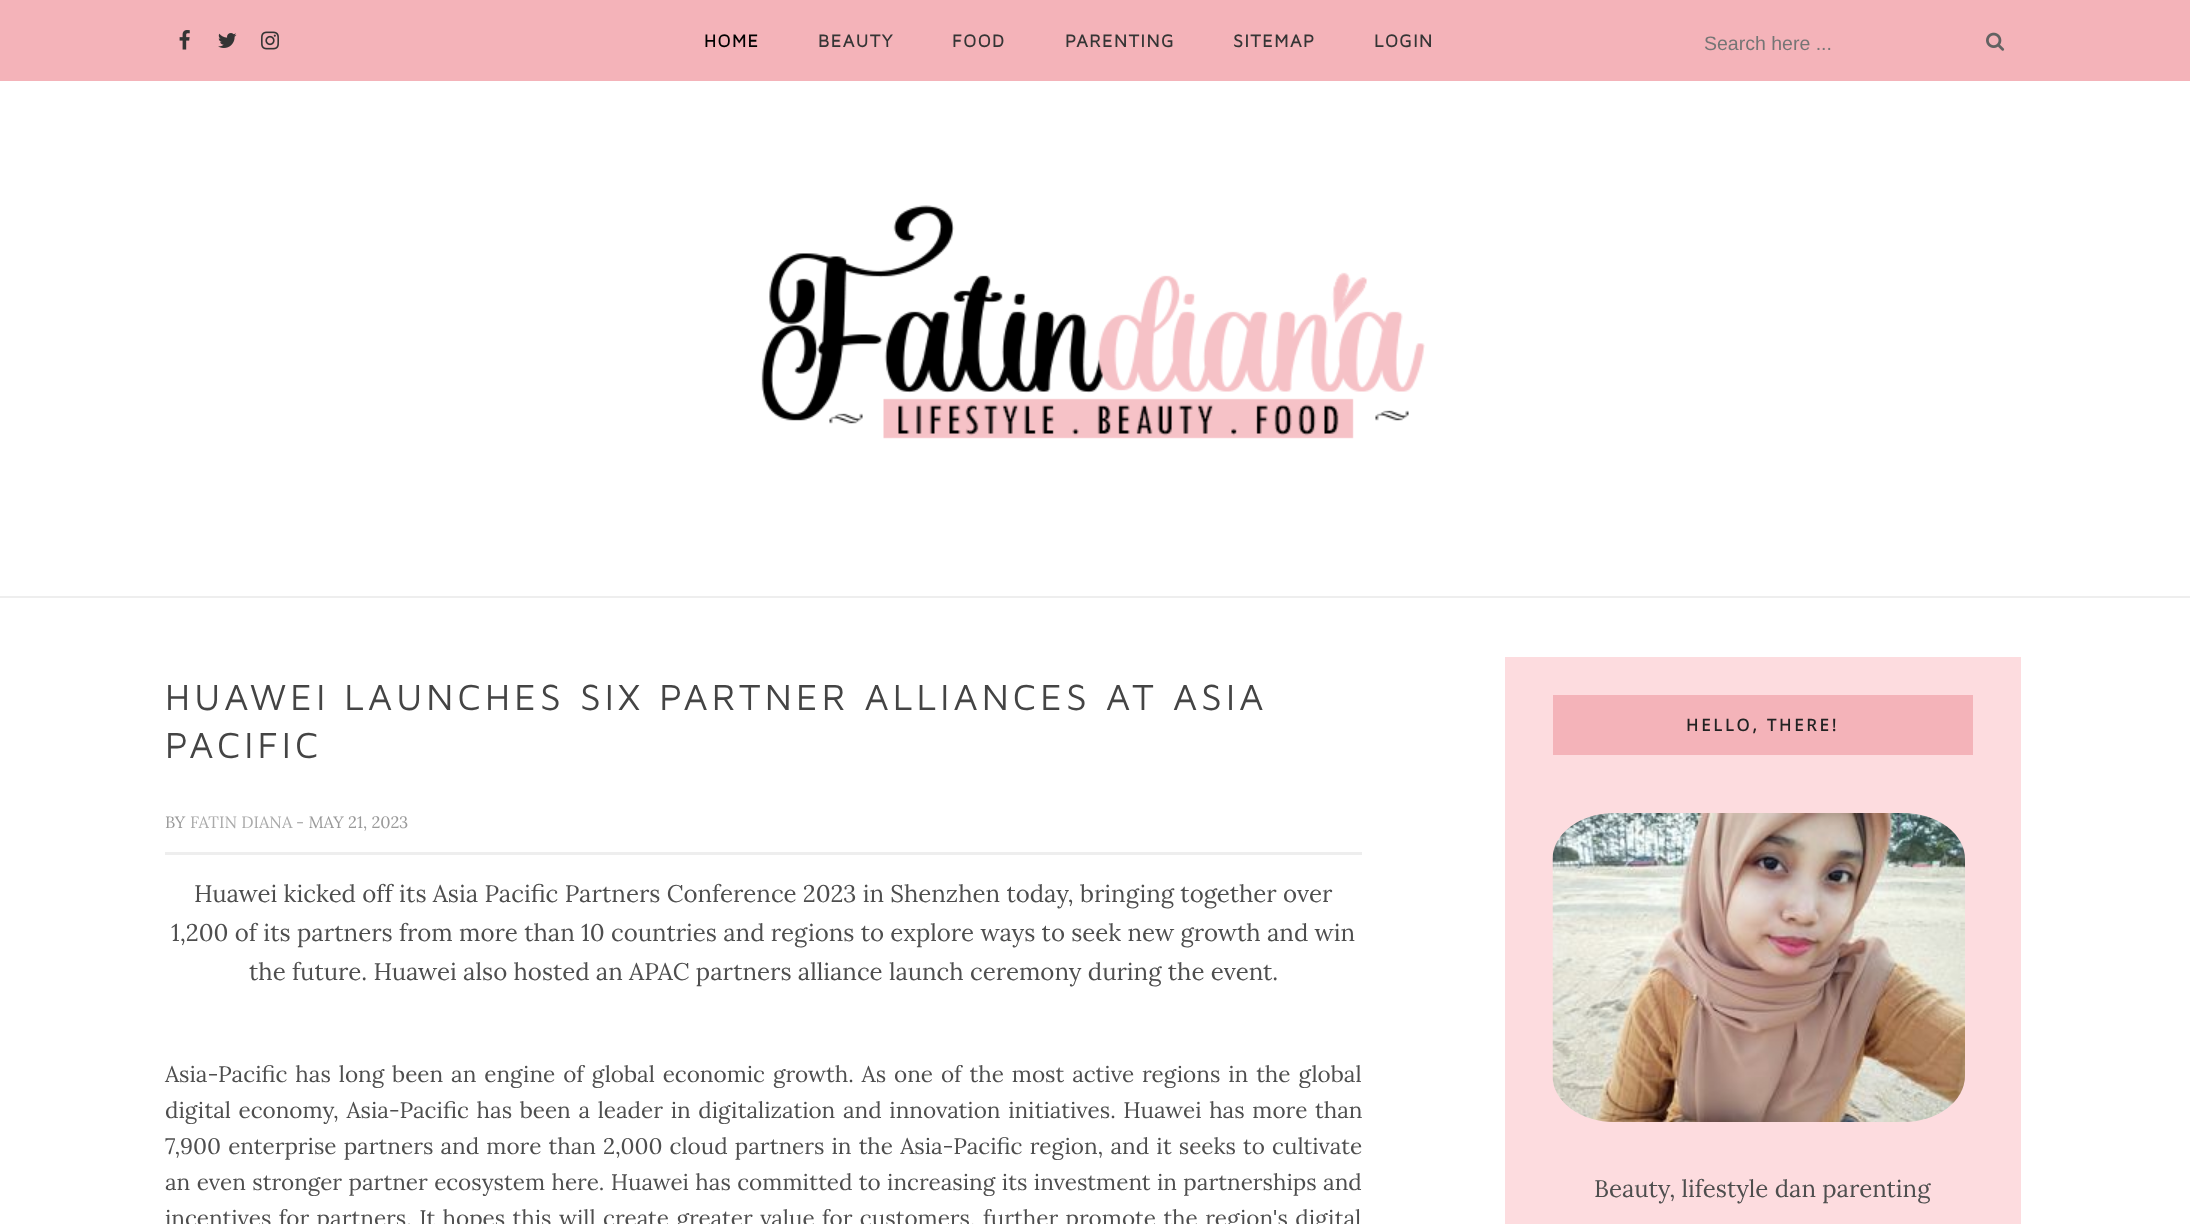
(async () => {
const canvas = document.querySelector("canvas")
canvas.width = 2190
canvas.height = 1224
const c = canvas.getContext("2d")
c.miterLimit = 4
c.fontKerning = "normal"
function T(s,x,y){c.fillText(s,x,y)}
function R(x,y,w,h){c.fillRect(x,y,w,h)}
async function I(src,x,y,w,h){const img=new Image();img.src=src;await img.decode();c.drawImage(img,x,y,w,h)}
c.fillStyle="#fff"
R(0,0,2190,1224)
c.fillStyle="#f4b3b9"
R(0,0,2190,81)
await I("1.png",179,30,11,20)
await I("2.png",218,33,19,15)
await I("3.png",261,31,18,19)
c.letterSpacing="1.5px"
c.font="bold 18px Maven Pro"
c.fillStyle="#000"
T("HOME",704,47)
c.fillStyle="#353535"
T("BEAUTY",818,47)
T("FOOD",952,47)
T("PARENTING",1065,47)
T("SITEMAP",1233,47)
T("LOGIN",1374,47)
c.letterSpacing="0px"
c.font="19.5px Liberation Sans"
c.fillStyle="#757575"
T("Search here ...",1704,50)
await I("4.png",1986,32,19,19)
c.fillStyle="#eee"
R(0,596,2190,2)
await I("5.png",761,205,664,234)
c.letterSpacing="4.1px"
c.font="37.5px Maven Pro"
c.fillStyle="#444"
T("HUAWEI LAUNCHES SIX PARTNER ALLIANCES AT ASIA",165,710)
T("PACIFIC",165,758)
c.letterSpacing="0px"
c.font="16.5px Lora"
c.fillStyle="#999"
T("BY",165,828)
c.fillStyle="#aaa"
T("FATIN DIANA",190,828)
c.fillStyle="#999"
T("- MAY 21, 2023",296,828)
c.fillStyle="#eee"
R(165,852,1197,3)
c.font="24px Lora"
c.fillStyle="#4e4e4e"
T("Huawei kicked off its Asia Pacific Partners Conference 2023 in Shenzhen today, bringing together over",194,902)
T("1,200 of its partners from more than 10 countries and regions to explore ways to seek new growth and win",171,941)
T("the future. Huawei also hosted an APAC partners alliance launch ceremony during the event.",249,980)
c.wordSpacing="2px"
c.font="22.5px Lora"
T("Asia-Pacific has long been an engine of global economic growth. As one of the most active regions in the global",165,1082)
c.wordSpacing="1.75px"
T("digital economy, Asia-Pacific has been a leader in digitalization and innovation initiatives. Huawei has more than",165,1118)
c.wordSpacing="1.2px"
T("7,900 enterprise partners and more than 2,000 cloud partners in the Asia-Pacific region, and it seeks to cultivate",165,1154)
c.wordSpacing="0.5px"
T("an even stronger partner ecosystem here. Huawei has committed to increasing its investment in partnerships and",165,1190)
c.wordSpacing="1.5px"
T("incentives for partners. It hopes this will create greater value for customers, further promote the region's digital",165,1226)
c.fillStyle="#fddcdf"
R(1505,657,516,567)
c.fillStyle="#f4b3b9"
R(1553,695,420,60)
c.letterSpacing="3px"
c.wordSpacing="0px"
c.font="bold 16.5px Open Sans"
c.fillStyle="#222"
T("HELLO, THERE!",1686,731)
await I("6.png",1552,813,413,309)
c.letterSpacing="0px"
c.font="24px Lora"
c.fillStyle="#4e4e4e"
T("Beauty, lifestyle dan parenting",1594,1197)
})()
